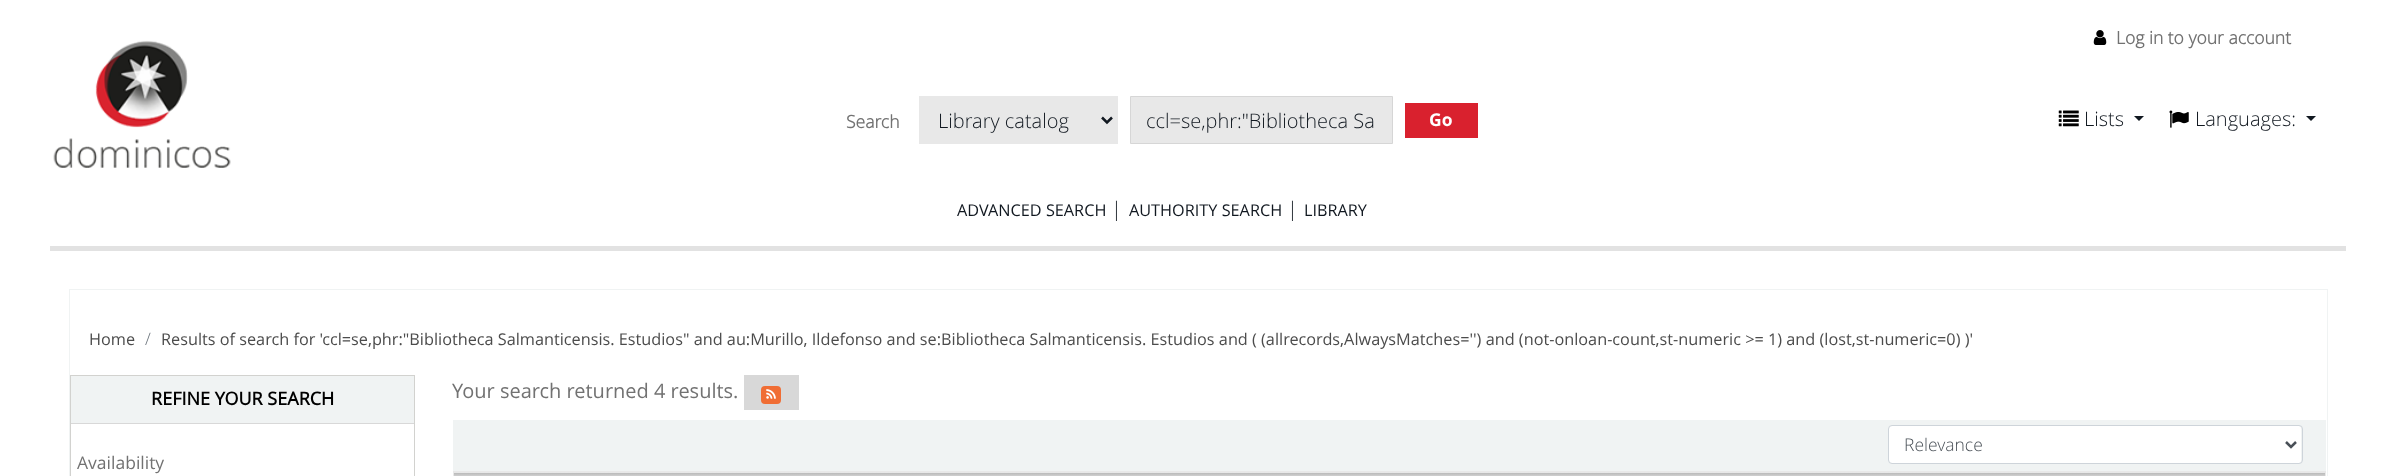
(async () => {
const canvas = document.querySelector("canvas")
canvas.width = 2396
canvas.height = 476
const c = canvas.getContext("2d")
c.miterLimit = 4
c.fontKerning = "normal"
function T(s,x,y){c.fillText(s,x,y)}
function R(x,y,w,h){c.fillRect(x,y,w,h)}
function Q(x,y,w,h,r){c.beginPath();c.roundRect(x,y,w,h,r);c.fill()}
async function I(src,x,y,w,h){const img=new Image();img.src=src;await img.decode();c.drawImage(img,x,y,w,h)}
let gradient, path
c.fillStyle="#fff"
R(0,0,2396,476)
c.fillStyle="#e2e2e2"
R(50,246,2296,5)
await I("1.png",53,40,178,128)
c.font="bold 17.5px Open Sans"
c.fillStyle="#727272"
T("Search",846,128)
c.fillStyle="#e8e8e8"
R(919,96,199,48)
path = new Path2D("M1102 117.5l5 5l5-5")
c.strokeStyle="#111820"
c.lineWidth=2.5
c.stroke(path)
c.font="300 20px Open Sans"
c.fillStyle="#111820"
T("Library catalog",938,128)
c.fillStyle="#e8e8e8"
c.beginPath()
c.rect(1130.5,96.5,262,47)
c.fill()
c.strokeStyle="#d6d6d6"
c.lineWidth=1
c.stroke()
c.fillStyle="#111820"
T("ccl=se,phr:\"Bibliotheca Sa",1146,128)
c.fillStyle="#d9212e"
R(1405,103,73,35)
c.font="bold 17.5px 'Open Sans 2'"
c.fillStyle="#fff"
T("Go",1429,126)
c.font="16.25px Open Sans"
c.fillStyle="#111820"
T("ADVANCED SEARCH",957,216)
c.font="300 20px Open Sans"
T("|",1111,216)
c.font="16.25px Open Sans"
T("AUTHORITY SEARCH",1129,216)
c.font="300 20px Open Sans"
T("|",1287,216)
c.font="16.25px Open Sans"
T("LIBRARY",1304,216)
await I("2.png",2093,30,14,15)
c.font="bold 17.5px Open Sans"
c.fillStyle="#727272"
T("Log in to your account",2116,44)
await I("3.png",2058,110,21,17)
c.font="300 20px Open Sans"
c.fillStyle="#111820"
T("Lists",2084,126)
path = new Path2D("M2134 116h10l-5 5z")
c.fill(path)
await I("4.png",2169,110,20,18)
T("Languages:",2195,126)
path = new Path2D("M2306 116h10l-5 5z")
c.fill(path)
c.strokeStyle="#f0f3f3"
c.strokeRect(69.5,289.5,2258,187)
c.font="16.25px Open Sans"
c.fillStyle="#4c4c4c"
T("Home",89,345)
c.font="300 17px Open Sans"
c.fillStyle="#6c757d"
T("/",145,345)
c.font="16.25px Open Sans"
c.fillStyle="#4c4c4c"
T("Results of search for 'ccl=se,phr:\"Bibliotheca Salmanticensis. Estudios\" and au:Murillo, Ildefonso and se:Bibliotheca Salmanticensis. Estudios and ( (allrecords,AlwaysMatches='') and (not-onloan-count,st-numeric >= 1) and (lost,st-numeric=0) )'",161,345)
c.strokeStyle="#d2d2cf"
c.strokeRect(70.5,375.5,344,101)
c.fillStyle="#f0f3f3"
R(71,376,343,47)
c.fillStyle="#d8d8d8"
R(71,423,343,1)
c.font="bold 18px 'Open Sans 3'"
c.fillStyle="#000"
T("REFINE YOUR SEARCH",151,405)
c.font="17.5px Open Sans"
c.fillStyle="#727272"
T("Availability",77,469)
c.font="20px Open Sans"
T("Your search returned 4 results.",452,398)
c.fillStyle="#d8d8d8"
R(744,375,55,35)
c.fillStyle="#f06d34"
Q(761,386,20,18,4)
await I("5.png",766,389,10,10)
c.fillStyle="#f0f3f3"
R(453,420,1873,51)
c.fillStyle="#fff"
Q(1889,426,412,37,2.5)
c.beginPath()
c.roundRect(1888.5,425.5,414,38,3.5)
c.strokeStyle="#ced4da"
c.stroke()
path = new Path2D("M2286 442l5 5l5-5")
c.strokeStyle="#495057"
c.lineWidth=2.5
c.stroke(path)
c.font="300 17.5px Open Sans"
c.fillStyle="#495057"
T("Relevance",1904,451)
gradient = c.createLinearGradient(1389,429,1389,473)
gradient.addColorStop(0,"#b2b2b2")
gradient.addColorStop(.14,"#e0e0e0")
gradient.addColorStop(1,"#e8e8e8")
c.fillStyle = gradient
R(453,471,1873,2)
gradient = c.createLinearGradient(1389,472,1389,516)
gradient.addColorStop(0,"#b2b2b2")
gradient.addColorStop(.14,"#e0e0e0")
gradient.addColorStop(1,"#e8e8e8")
c.fillStyle = gradient
R(453,473,1873,3)
c.fillStyle="#e8e8e8"
R(2325,471,1,5)
R(453,471,1,5)
})()
